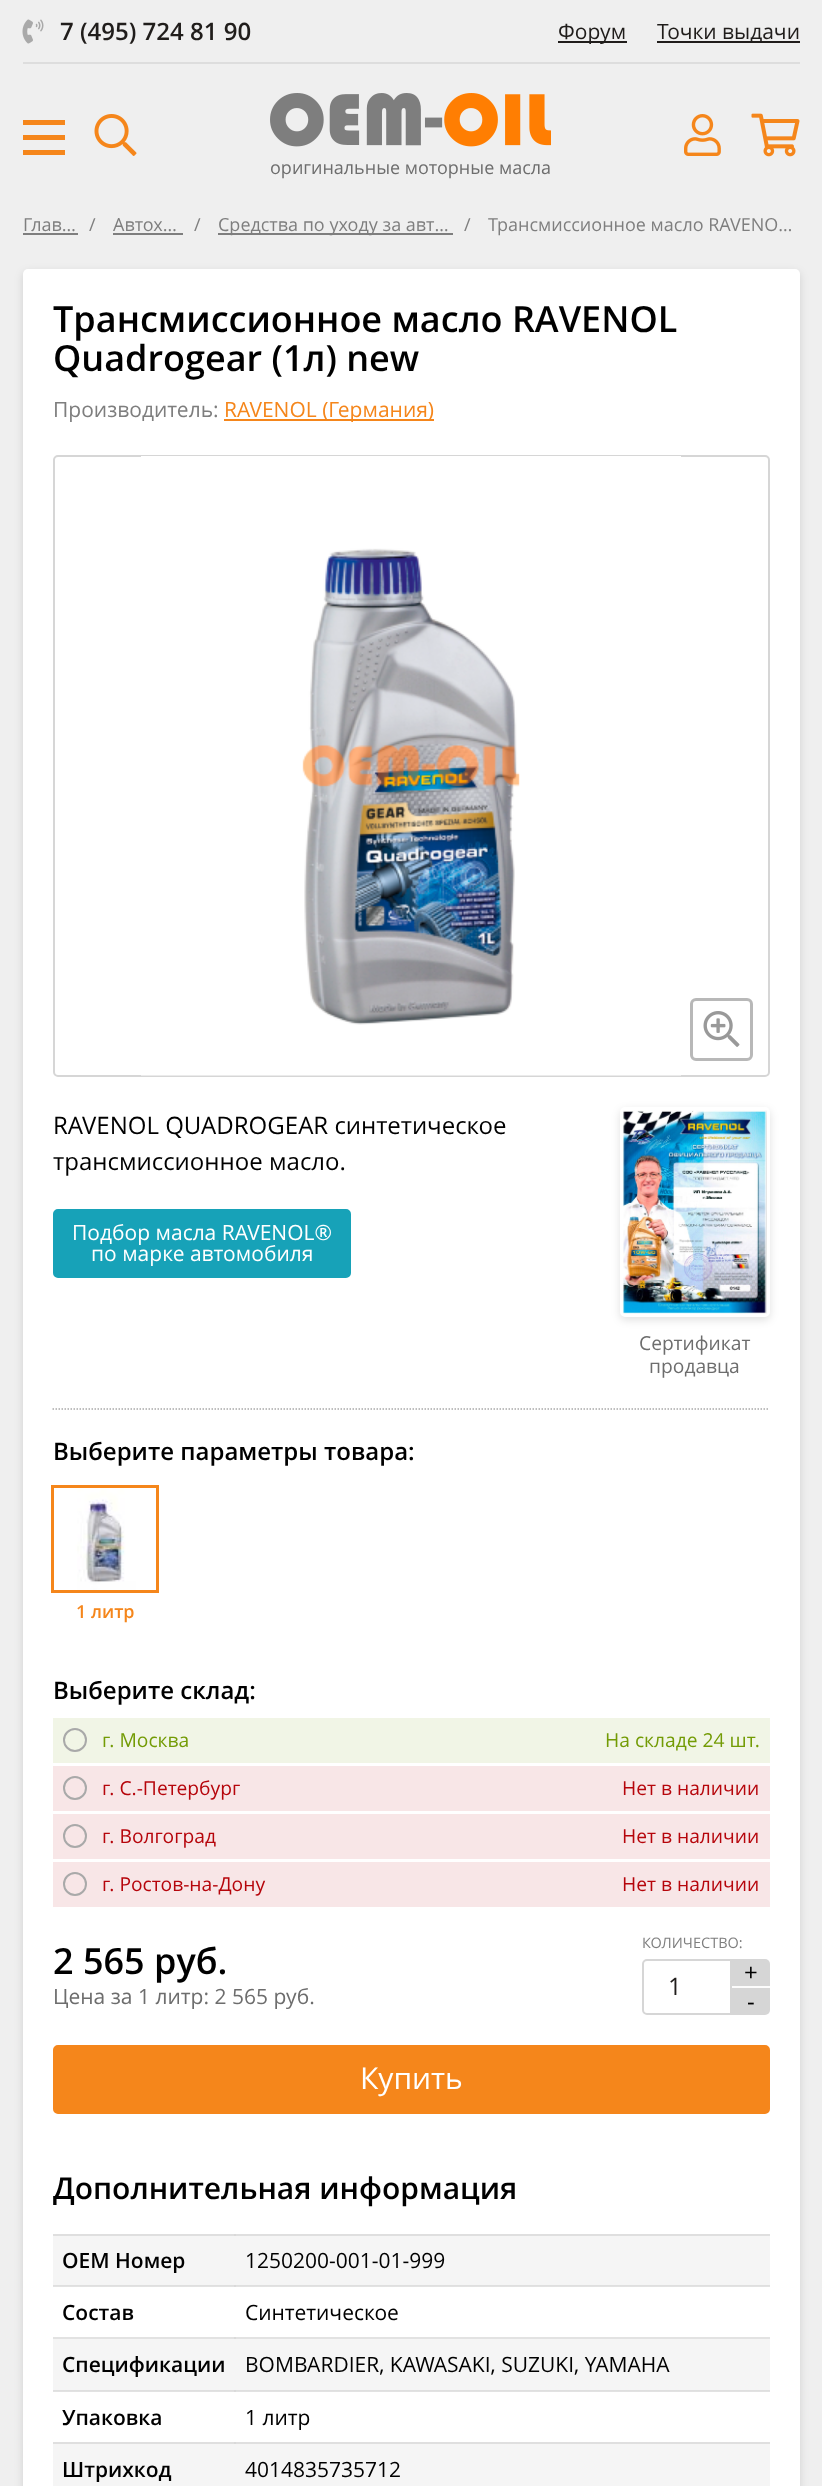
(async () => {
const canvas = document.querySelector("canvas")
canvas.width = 822
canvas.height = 2486
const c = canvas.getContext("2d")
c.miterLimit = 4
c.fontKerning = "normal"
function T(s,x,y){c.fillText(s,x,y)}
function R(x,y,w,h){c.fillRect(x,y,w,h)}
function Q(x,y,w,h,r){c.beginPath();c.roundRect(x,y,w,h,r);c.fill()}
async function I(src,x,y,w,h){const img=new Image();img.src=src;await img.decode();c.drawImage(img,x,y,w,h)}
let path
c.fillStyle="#efefef"
R(0,0,822,2486)
await I("1.png",22,19,22,25)
c.font="600 24px Open Sans"
c.fillStyle="#201d1b"
T("7 (495) 724 81 90",60,40)
R(558,41,69,2)
c.font="21px Open Sans"
T("Форум",558,39)
R(657,41,143,2)
T("Точки выдачи",657,39)
c.fillStyle="#ddd"
R(23,62,777,2)
c.fillStyle="#f5861b"
R(23,135,42,5)
R(23,120,42,5)
R(23,150,42,5)
await I("2.png",94,114,43,42)
await I("3.png",684,114,37,42)
await I("4.png",751,113,49,44)
await I("5.png",270,93,281,54)
c.font="18px Open Sans"
c.fillStyle="#6d6d6d"
T("оригинальные моторные масла",270,174)
c.fillStyle="#7e7e7e"
T("Глав…",23,231)
R(23,233,55,2)
T("/",89,231)
T("Автох…",113,231)
R(113,233,70,2)
T("/",194,231)
R(218,233,235,2)
T("Средства по уходу за авт…",218,231)
T("/",464,231)
T("Трансмиссионное масло RAVENO…",488,231)
c.fillStyle="#0000001f"
c.filter="blur(4.5px)"
c.beginPath()
c.roundRect(23,272,777,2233,5)
c.fill()
c.filter="none"
c.fillStyle="#fff"
Q(23,269,777,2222,5)
c.fillStyle="#e2e2e2"
R(53,2286,717,1)
c.fillStyle="#dadada"
R(234,2286,2,1)
c.fillStyle="#e2e2e2"
R(53,2337,717,2)
R(53,2391,717,1)
c.fillStyle="#dadada"
R(234,2391,2,1)
c.font="600 36px Open Sans"
c.fillStyle="#000"
T("Трансмиссионное масло RAVENOL",53,332)
T("Quadrogear (1л) new",53,371)
c.font="21px Open Sans"
c.fillStyle="#7e7e7e"
T("Производитель:",53,417)
c.fillStyle="#f5861b"
R(224,419,210,2)
T("RAVENOL (Германия)",224,417)
c.beginPath()
c.roundRect(54,456,715,620,4)
c.strokeStyle="#d6d6d6"
c.lineWidth=2
c.stroke()
await I("6.png",141,456,540,620)
c.beginPath()
c.roundRect(691.5,999.5,60,60,4.5)
c.strokeStyle="#b8b8b8"
c.lineWidth=3
c.stroke()
await I("7.png",703,1011,37,36)
c.font="24px Open Sans"
c.fillStyle="#000"
T("RAVENOL QUADROGEAR синтетическое",53,1134)
T("трансмиссионное масло.",53,1170)
c.fillStyle="#17a2b8"
c.beginPath()
c.roundRect(54,1210,296,67,4)
c.fill()
c.strokeStyle="#17a2b8"
c.lineWidth=2
c.stroke()
c.font="21px Open Sans"
c.fillStyle="#fff"
T("Подбор масла RAVENOL®",72,1240)
T("по марке автомобиля",91,1261)
c.fillStyle="#0000001f"
c.filter="blur(4.5px)"
c.beginPath()
c.roundRect(620,1110,150,210,5)
c.fill()
c.filter="none"
c.beginPath()
c.roundRect(621.5,1108.5,147,207,3.5)
c.strokeStyle="#fff"
c.lineWidth=3
c.stroke()
await I("8.png",622,1110,144,204)
c.font="19.25px Open Sans"
c.fillStyle="#6d6d6d"
T("Сертификат",639,1350)
T("продавца",649,1373)
path = new Path2D("M52.5 1409h717")
c.strokeStyle="#a9a9a9"
c.lineWidth=1.5
c.setLineDash([1.5,1.5])
c.stroke(path)
c.font="600 24px Open Sans"
c.fillStyle="#000"
T("Выберите параметры товара:",53,1460)
c.strokeStyle="#f5861b"
c.lineWidth=2
c.setLineDash([])
c.strokeRect(52,1486,106,106)
c.strokeRect(54,1488,103,103)
await I("9.png",54,1488,102,102)
c.font="600 18px Open Sans"
c.fillStyle="#f5861b"
T("1 литр",76,1618)
c.font="600 24px Open Sans"
c.fillStyle="#000"
T("Выберите склад:",53,1699)
c.fillStyle="#f1f5e6"
R(53,1718,717,45)
c.beginPath()
c.arc(75,1740,11,0,7)
c.strokeStyle="#a9a9a9"
c.stroke()
c.font="19.25px Open Sans"
c.fillStyle="#739b05"
T("г. Москва",102,1747)
T("На складе 24 шт.",605,1747)
c.fillStyle="#f8e6e7"
R(53,1766,717,45)
c.beginPath()
c.arc(75,1788,11,0,7)
c.stroke()
c.fillStyle="#b6050b"
T("г. С.-Петербург",102,1795)
T("Нет в наличии",622,1795)
c.fillStyle="#f8e6e7"
R(53,1814,717,45)
c.beginPath()
c.arc(75,1836,11,0,7)
c.stroke()
c.fillStyle="#b6050b"
T("г. Волгоград",102,1843)
T("Нет в наличии",622,1843)
c.fillStyle="#f8e6e7"
R(53,1862,717,45)
c.beginPath()
c.arc(75,1884,11,0,7)
c.stroke()
c.fillStyle="#b6050b"
T("г. Ростов-на-Дону",102,1891)
T("Нет в наличии",622,1891)
c.font="600 36px Open Sans"
c.fillStyle="#000"
T("2 565 руб.",53,1974)
c.font="21px Open Sans"
c.fillStyle="#6d6d6d"
T("Цена за 1 литр: 2 565 руб.",53,2004)
c.font="14.5px Open Sans"
c.fillStyle="#7e7e7e"
T("КОЛИЧЕСТВО:",642,1948)
c.fillStyle="#d6d6d6"
c.beginPath()
c.roundRect(732,1959,38,27,[0,5,0,0])
c.fill()
c.font="24px Open Sans"
c.fillStyle="#000"
T("+",744,1981)
c.beginPath()
c.roundRect(643,1960,88,54,[4,0,0,4])
c.strokeStyle="#d6d6d6"
c.stroke()
c.fillStyle="#201d1b"
T("1",668,1995)
c.fillStyle="#d6d6d6"
c.beginPath()
c.roundRect(732,1986,38,29,[0,0,5,0])
c.fill()
c.fillStyle="#fcfcfc"
R(732,1986,38,2)
c.fillStyle="#000"
T("-",747,2010)
c.fillStyle="#f5861b"
c.beginPath()
c.roundRect(54,2046,715,67,4)
c.fill()
c.strokeStyle="#f5861b"
c.stroke()
c.font="30px Open Sans"
c.fillStyle="#fff"
T("Купить",360,2089)
c.font="600 30px Open Sans"
c.fillStyle="#000"
T("Дополнительная информация",53,2199)
c.fillStyle="#f5f5f5"
R(53,2236,717,49)
c.fillStyle="#dfdfdf"
R(53,2234,717,2)
R(53,2285,717,1)
c.fillStyle="#d9d9d9"
R(234,2285,2,1)
c.font="600 21px Open Sans"
c.fillStyle="#000"
T("OEM Номер",62,2268)
c.fillStyle="#d9d9d9"
R(234,2234,2,2)
c.font="21px Open Sans"
c.fillStyle="#000"
T("1250200-001-01-999",245,2268)
c.font="600 21px Open Sans"
T("Состав",62,2320)
c.font="21px Open Sans"
T("Синтетическое",245,2320)
c.fillStyle="#f5f5f5"
R(53,2339,717,51)
c.fillStyle="#dfdfdf"
R(53,2390,717,1)
c.fillStyle="#d9d9d9"
R(234,2390,2,1)
c.font="600 21px Open Sans"
c.fillStyle="#000"
T("Спецификации",62,2372)
c.fillStyle="#dadada"
R(234,2337,2,2)
c.font="21px Open Sans"
c.fillStyle="#000"
T("BOMBARDIER, KAWASAKI, SUZUKI, YAMAHA",245,2372)
c.font="600 21px Open Sans"
T("Упаковка",62,2425)
c.font="21px Open Sans"
T("1 литр",245,2425)
c.fillStyle="#f5f5f5"
R(53,2444,717,42)
c.fillStyle="#dfdfdf"
R(53,2442,717,2)
c.font="600 21px Open Sans"
c.fillStyle="#000"
T("Штрихкод",62,2477)
c.fillStyle="#d9d9d9"
R(234,2442,2,2)
c.font="21px Open Sans"
c.fillStyle="#000"
T("4014835735712",245,2477)
})()
